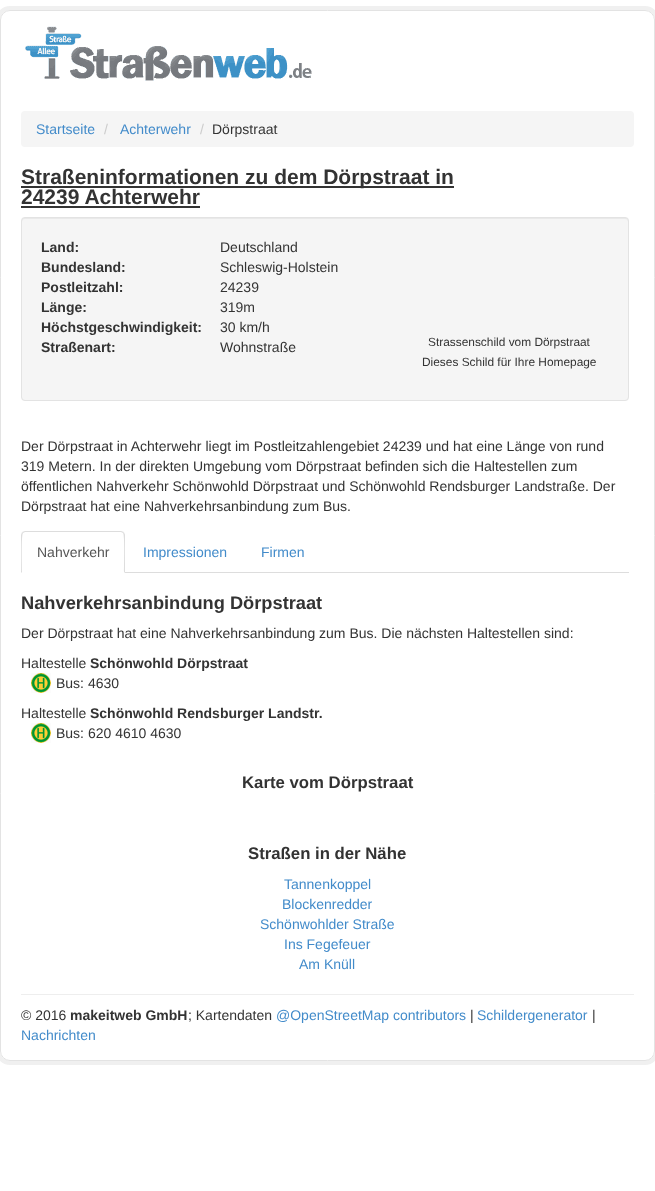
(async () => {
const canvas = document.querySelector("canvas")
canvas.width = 655
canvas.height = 1191
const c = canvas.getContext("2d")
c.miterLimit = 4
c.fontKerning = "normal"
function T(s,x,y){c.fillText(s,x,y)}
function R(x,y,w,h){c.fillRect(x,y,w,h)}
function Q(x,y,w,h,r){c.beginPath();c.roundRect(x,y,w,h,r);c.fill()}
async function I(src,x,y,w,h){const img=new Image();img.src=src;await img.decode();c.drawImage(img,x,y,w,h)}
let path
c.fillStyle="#fff"
R(0,0,655,1191)
c.beginPath()
c.roundRect(-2,8,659,1055,12)
c.strokeStyle="#f0f0f0"
c.lineWidth=4
c.stroke()
c.beginPath()
c.roundRect(.5,10.5,654,1050,9.5)
c.strokeStyle="#e3e3e3"
c.lineWidth=1
c.stroke()
await I("1.png",25,26,287,55)
c.fillStyle="#f5f5f5"
Q(21,111,613,36,4)
c.font="14px Liberation Sans"
c.fillStyle="#428bca"
T("Startseite",36,134)
c.fillStyle="#ccc"
T("/",104,134)
c.fillStyle="#428bca"
T("Achterwehr",120,134)
c.fillStyle="#ccc"
T("/",200,134)
c.fillStyle="#333"
T("Dörpstraat",212,134)
R(21,186,433,2)
c.font="bold 21px Liberation Sans"
T("Straßeninformationen zu dem Dörpstraat in",21,184)
T("24239 Achterwehr",21,204)
R(21,206,179,2)
c.fillStyle="#f5f5f5"
Q(21,217,608,184,4)
c.fillStyle="#e9e9e9"
path = new Path2D("M25 219h600c2 0 3 1 3 3v-1c0-2-1-3-3-3h-600c-2 0-3 1-3 3v1c0-2 1-3 3-3z")
c.fill(path)
c.beginPath()
c.roundRect(21.5,217.5,607,183,3.5)
c.stroke()
c.font="bold 14px Liberation Sans"
c.fillStyle="#333"
T("Land:",41,252)
c.font="14px Liberation Sans"
T("Deutschland",220,252)
c.font="bold 14px Liberation Sans"
T("Bundesland:",41,272)
c.font="14px Liberation Sans"
T("Schleswig-Holstein",220,272)
c.font="bold 14px Liberation Sans"
T("Postleitzahl:",41,292)
c.font="14px Liberation Sans"
T("24239",220,292)
c.font="bold 14px Liberation Sans"
T("Länge:",41,312)
c.font="14px Liberation Sans"
T("319m",220,312)
c.font="bold 14px Liberation Sans"
T("Höchstgeschwindigkeit:",41,332)
c.font="14px Liberation Sans"
T("30 km/h",220,332)
c.font="bold 14px Liberation Sans"
T("Straßenart:",41,352)
c.font="14px Liberation Sans"
T("Wohnstraße",220,352)
c.font="11.9px Liberation Sans"
T("Strassenschild vom Dörpstraat",428,346)
T("Dieses Schild für Ihre Homepage",422,366)
c.font="14px Liberation Sans"
T("Der Dörpstraat in Achterwehr liegt im Postleitzahlengebiet 24239 und hat eine Länge von rund",21,451)
T("319 Metern. In der direkten Umgebung vom Dörpstraat befinden sich die Haltestellen zum",21,471)
T("öffentlichen Nahverkehr Schönwohld Dörpstraat und Schönwohld Rendsburger Landstraße. Der",21,491)
T("Dörpstraat hat eine Nahverkehrsanbindung zum Bus.",21,511)
c.fillStyle="#ddd"
R(125,572,504,1)
path = new Path2D("M25 531l-3 1l1 1l2-1h96l2 1l1-1l-3-1z")
c.fill(path)
path = new Path2D("M125 573v-38c0-1-1-2-1-3l-1 1c2 2 1 34 1 39z")
c.fill(path)
path = new Path2D("M21 573l1-1c0-5-1-37 1-39l-1-1l-1 3z")
c.fill(path)
c.fillStyle="#555"
T("Nahverkehr",37,557)
c.fillStyle="#428bca"
T("Impressionen",143,557)
T("Firmen",261,557)
c.font="bold 18.25px Liberation Sans"
c.fillStyle="#333"
T("Nahverkehrsanbindung Dörpstraat",21,609)
c.font="14px Liberation Sans"
T("Der Dörpstraat hat eine Nahverkehrsanbindung zum Bus. Die nächsten Haltestellen sind:",21,638)
T("Haltestelle",21,668)
c.font="bold 14px Liberation Sans"
T("Schönwohld Dörpstraat",90,668)
await I("2.png",31,673,20,20)
c.font="14px Liberation Sans"
T("Bus: 4630",56,688)
T("Haltestelle",21,718)
c.font="bold 14px Liberation Sans"
T("Schönwohld Rendsburger Landstr.",90,718)
await I("2.png",31,723,20,20)
c.font="14px Liberation Sans"
T("Bus: 620 4610 4630",56,738)
c.font="bold 16.75px Liberation Sans"
T("Karte vom Dörpstraat",242,788)
T("Straßen in der Nähe",248,859)
c.font="14px Liberation Sans"
c.fillStyle="#428bca"
T("Tannenkoppel",284,889)
T("Blockenredder",282,909)
T("Schönwohlder Straße",260,929)
T("Ins Fegefeuer",284,949)
T("Am Knüll",299,969)
c.fillStyle="#eee"
R(21,994,613,1)
c.fillStyle="#333"
T("© 2016",21,1020)
c.font="bold 14px Liberation Sans"
T("makeitweb GmbH",70,1020)
c.font="14px Liberation Sans"
T("; Kartendaten",188,1020)
c.fillStyle="#428bca"
T("@OpenStreetMap contributors",276,1020)
c.fillStyle="#333"
T("|",470,1020)
c.fillStyle="#428bca"
T("Schildergenerator",477,1020)
c.fillStyle="#333"
T("|",592,1020)
c.fillStyle="#428bca"
T("Nachrichten",21,1040)
})()
